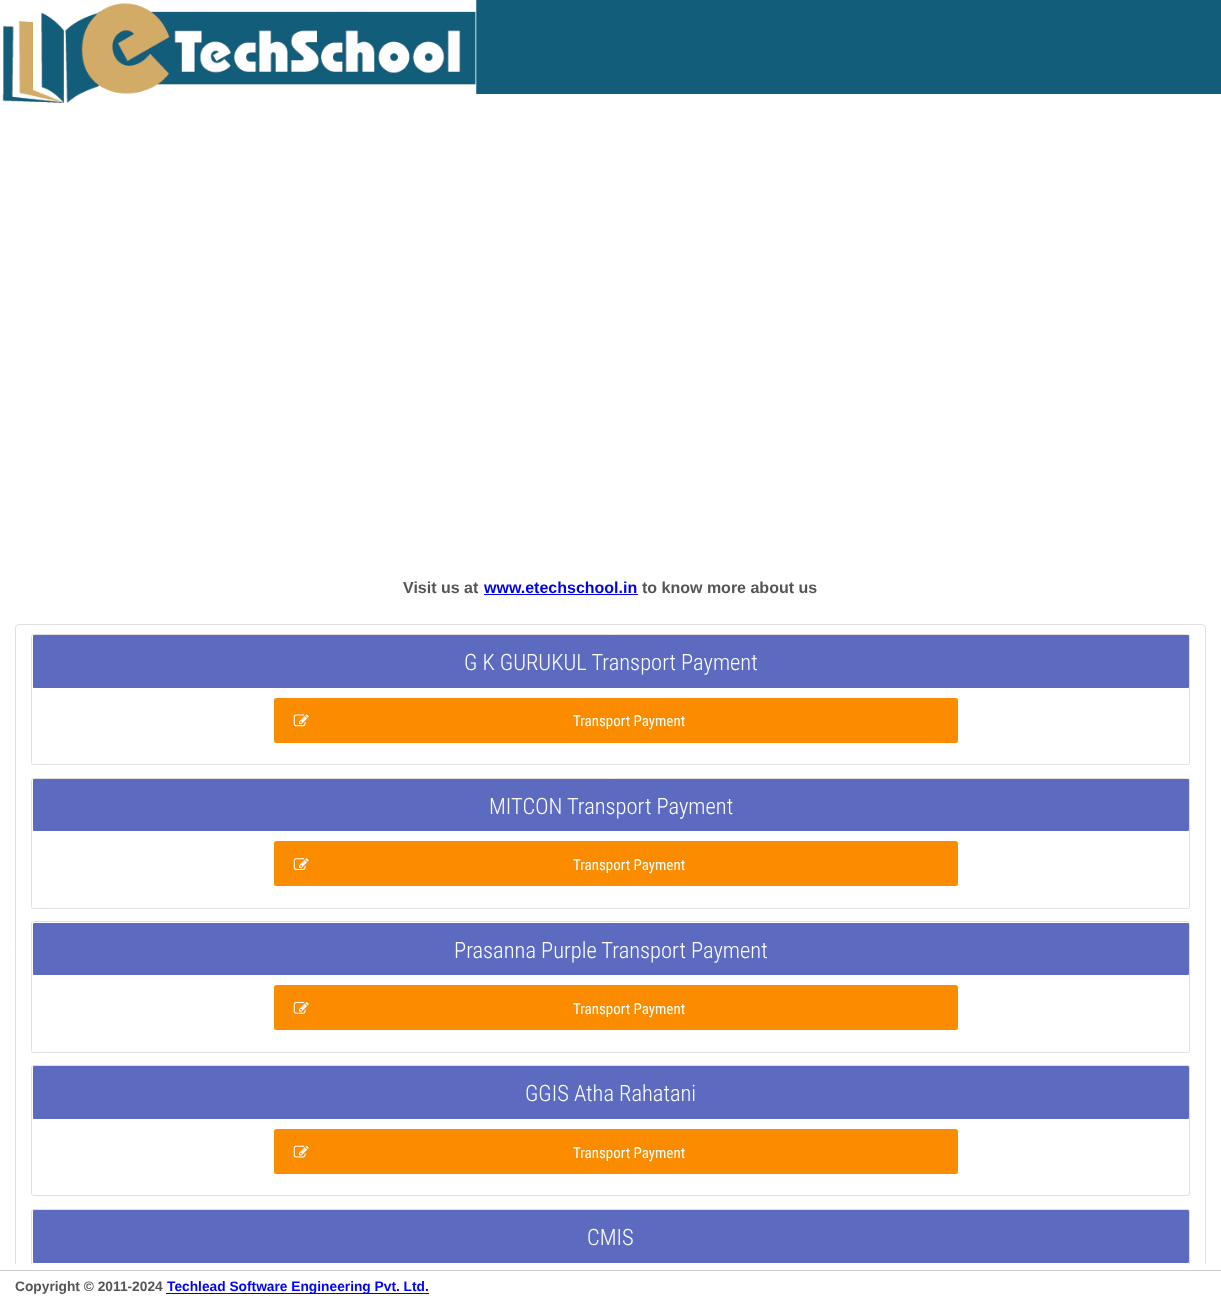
(async () => {
const canvas = document.querySelector("canvas")
canvas.width = 1221
canvas.height = 1301
const c = canvas.getContext("2d")
c.miterLimit = 4
c.fontKerning = "normal"
function T(s,x,y){c.fillText(s,x,y)}
function R(x,y,w,h){c.fillRect(x,y,w,h)}
function Q(x,y,w,h,r){c.beginPath();c.roundRect(x,y,w,h,r);c.fill()}
async function I(src,x,y,w,h){const img=new Image();img.src=src;await img.decode();c.drawImage(img,x,y,w,h)}
c.fillStyle="#fff"
R(0,0,1221,1301)
c.fillStyle="#125d79"
R(476,0,745,94)
await I("1.png",0,0,477,103)
c.font="bold 16px Liberation Sans"
c.fillStyle="#555"
T("Visit us at",403,593)
c.fillStyle="#00e"
T("www.etechschool.in",484,593)
R(484,594,154,1)
c.fillStyle="#555"
T("to know more about us",642,593)
c.save()
c.beginPath()
c.rect(0,75,1221,1189)
c.clip()
c.beginPath()
c.roundRect(15.5,624.5,1190,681,3.5)
c.strokeStyle="#e0e0e0"
c.stroke()
c.restore()
c.beginPath()
c.roundRect(31.5,634.5,1158,130,2)
c.strokeStyle="#e0e0e0"
c.stroke()
c.fillStyle="#5c6bc0"
Q(33,635,1156,53,1)
c.font="300 22.5px Roboto Condensed"
c.fillStyle="#fff"
T("G K GURUKUL Transport Payment",464,670)
c.fillStyle="#fb8c00"
Q(274,698,684,45,2.5)
await I("2.png",293,714,16,13)
c.font="15px Roboto Condensed"
c.fillStyle="#fff"
T("Transport Payment",573,726)
c.beginPath()
c.roundRect(31.5,778.5,1158,130,2)
c.stroke()
c.fillStyle="#5c6bc0"
Q(33,779,1156,52,1)
c.font="300 22.5px Roboto Condensed"
c.fillStyle="#fff"
T("MITCON Transport Payment",489,814)
c.fillStyle="#fb8c00"
Q(274,841,684,45,2.5)
await I("3.png",293,858,16,12)
c.font="15px Roboto Condensed"
c.fillStyle="#fff"
T("Transport Payment",573,870)
c.beginPath()
c.roundRect(31.5,921.5,1158,131,2)
c.stroke()
c.fillStyle="#5c6bc0"
Q(33,923,1156,52,1)
c.font="300 22.5px Roboto Condensed"
c.fillStyle="#fff"
T("Prasanna Purple Transport Payment",454,958)
c.fillStyle="#fb8c00"
Q(274,985,684,45,2.5)
await I("4.png",293,1001,16,13)
c.font="15px Roboto Condensed"
c.fillStyle="#fff"
T("Transport Payment",573,1014)
c.beginPath()
c.roundRect(31.5,1065.5,1158,130,2)
c.stroke()
c.fillStyle="#5c6bc0"
Q(33,1066,1156,53,1)
c.font="300 22.5px Roboto Condensed"
c.fillStyle="#fff"
T("GGIS Atha Rahatani",525,1101)
c.fillStyle="#fb8c00"
Q(274,1129,684,45,2.5)
await I("5.png",293,1145,16,13)
c.font="15px Roboto Condensed"
c.fillStyle="#fff"
T("Transport Payment",573,1158)
c.save()
c.beginPath()
c.rect(0,75,1221,1189)
c.clip()
c.beginPath()
c.roundRect(31.5,1209.5,1158,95,2)
c.stroke()
c.restore()
c.fillStyle="#5c6bc0"
Q(33,1210,1156,53,1)
c.font="300 22.5px Roboto Condensed"
c.fillStyle="#fff"
T("CMIS",587,1245)
c.fillStyle="#ccc"
R(0,1270,1221,1)
c.font="bold 13.75px Liberation Sans"
c.fillStyle="#555"
T("Copyright © 2011-2024",15,1291)
c.fillStyle="#00f"
R(166,1293,263,1)
T("Techlead Software Engineering Pvt. Ltd.",167,1291)
})()
